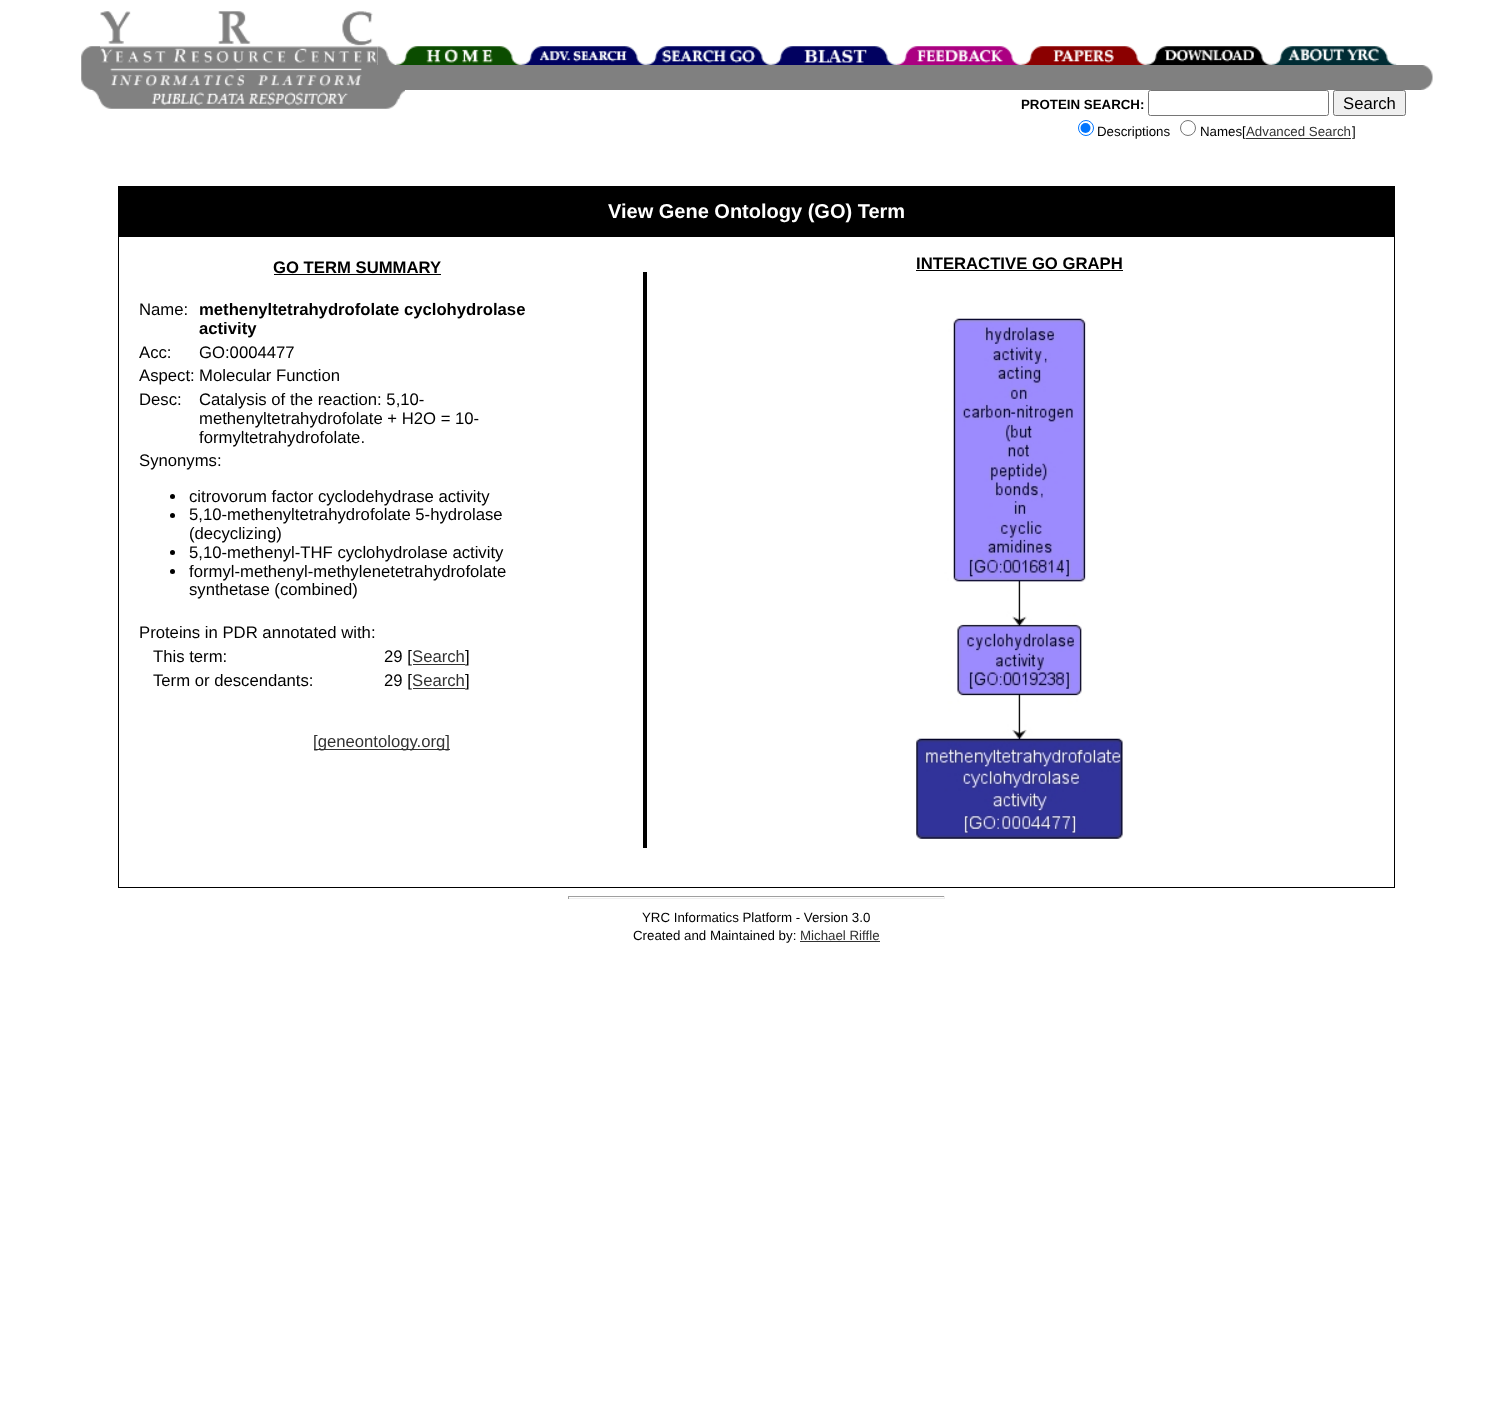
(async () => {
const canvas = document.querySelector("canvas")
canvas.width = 1512
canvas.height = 1403
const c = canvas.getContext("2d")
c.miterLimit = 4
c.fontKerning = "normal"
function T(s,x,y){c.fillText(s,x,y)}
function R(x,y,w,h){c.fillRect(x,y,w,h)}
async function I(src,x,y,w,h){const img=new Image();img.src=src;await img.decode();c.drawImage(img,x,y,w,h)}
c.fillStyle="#fff"
R(0,0,1512,1403)
await I("1.png",81,46,19,19)
await I("2.png",100,11,278,54)
await I("3.png",377,46,19,19)
await I("4.png",396,46,126,19)
await I("5.png",521,46,126,19)
await I("6.png",646,46,126,19)
await I("7.png",771,46,126,19)
await I("8.png",896,46,126,19)
await I("9.png",1021,46,126,19)
await I("10.png",1146,46,126,19)
await I("11.png",1271,46,126,19)
await I("12.png",81,65,19,25)
await I("13.png",100,65,276,25)
c.fillStyle="#808080"
R(376,65,1038,25)
await I("14.png",1414,65,19,25)
await I("15.png",92,90,313,19)
c.font="bold 13.3px Liberation Sans"
c.fillStyle="#000"
T("PROTEIN SEARCH:",1021,109)
c.beginPath()
c.roundRect(1148.5,90.5,180,25,2)
c.strokeStyle="#767676"
c.stroke()
c.fillStyle="#efefef"
c.beginPath()
c.roundRect(1333.5,90.5,72,25,2)
c.fill()
c.stroke()
c.font="16.7px Liberation Sans"
c.fillStyle="#000"
T("Search",1343,109)
c.beginPath()
c.arc(1086,128,7.5,0,7)
c.strokeStyle="#0075ff"
c.stroke()
c.fillStyle="#0075ff"
c.beginPath()
c.arc(1085.5,128,5,0,7)
c.fill()
c.font="13.3px Liberation Sans"
c.fillStyle="#000"
T("Descriptions",1097,136)
c.beginPath()
c.arc(1188,128,7.5,0,7)
c.strokeStyle="#767676"
c.stroke()
T("Names[",1200,136)
c.fillStyle="#323232"
T("Advanced Search",1246,136)
R(1246,138,105,1)
c.fillStyle="#000"
T("]",1352,136)
R(118,186,1277,50)
c.font="bold 20px Liberation Sans"
c.fillStyle="#fff"
T("View Gene Ontology (GO) Term",608,218)
c.strokeStyle="#000"
c.strokeRect(118.5,236.5,1276,651)
c.font="bold 16.7px Liberation Sans"
c.fillStyle="#000"
T("GO TERM SUMMARY",273,273)
R(274,274,167,1)
c.font="16.7px Liberation Sans"
T("Name:",139,315)
c.font="bold 16.7px Liberation Sans"
T("methenyltetrahydrofolate cyclohydrolase",199,315)
T("activity",199,334)
c.font="16.7px Liberation Sans"
T("Acc:",139,358)
T("GO:0004477",199,358)
T("Aspect:",139,381)
T("Molecular Function",199,381)
T("Desc:",139,405)
T("Catalysis of the reaction: 5,10-",199,405)
T("methenyltetrahydrofolate + H2O = 10-",199,424)
T("formyltetrahydrofolate.",199,443)
T("Synonyms:",139,466)
c.beginPath()
c.arc(172.5,496.5,2.5,0,7)
c.fill()
T("citrovorum factor cyclodehydrase activity",189,502)
c.beginPath()
c.arc(172.5,515.5,2.5,0,7)
c.fill()
T("5,10-methenyltetrahydrofolate 5-hydrolase",189,520)
T("(decyclizing)",189,539)
c.beginPath()
c.arc(172.5,552.5,2.5,0,7)
c.fill()
T("5,10-methenyl-THF cyclohydrolase activity",189,558)
c.beginPath()
c.arc(172.5,571.5,2.5,0,7)
c.fill()
T("formyl-methenyl-methylenetetrahydrofolate",189,577)
T("synthetase (combined)",189,595)
T("Proteins in PDR annotated with:",139,638)
T("This term:",153,662)
T("29 [",384,662)
c.fillStyle="#323232"
T("Search",412,662)
R(413,664,52,1)
c.fillStyle="#000"
T("]",465,662)
T("Term or descendants:",153,686)
T("29 [",384,686)
c.fillStyle="#323232"
T("Search",412,686)
R(413,688,52,1)
c.fillStyle="#000"
T("]",465,686)
c.fillStyle="#323232"
R(314,749,136,1)
T("[geneontology.org]",313,747)
c.fillStyle="#000"
R(643,272,4,576)
c.font="bold 16.7px Liberation Sans"
T("INTERACTIVE GO GRAPH",916,269)
R(916,270,207,1)
await I("16.png",916,318,207,521)
c.fillStyle="#9f9f9f"
R(568,896,377,1)
c.fillStyle="#eee"
R(944,896,1,3)
R(568,898,377,1)
c.fillStyle="#9f9f9f"
R(568,896,1,3)
c.font="13.3px Liberation Sans"
c.fillStyle="#000"
T("YRC Informatics Platform - Version 3.0",642,922)
T("Created and Maintained by:",633,940)
c.fillStyle="#323232"
T("Michael Riffle",800,940)
R(800,941,80,1)
})()
